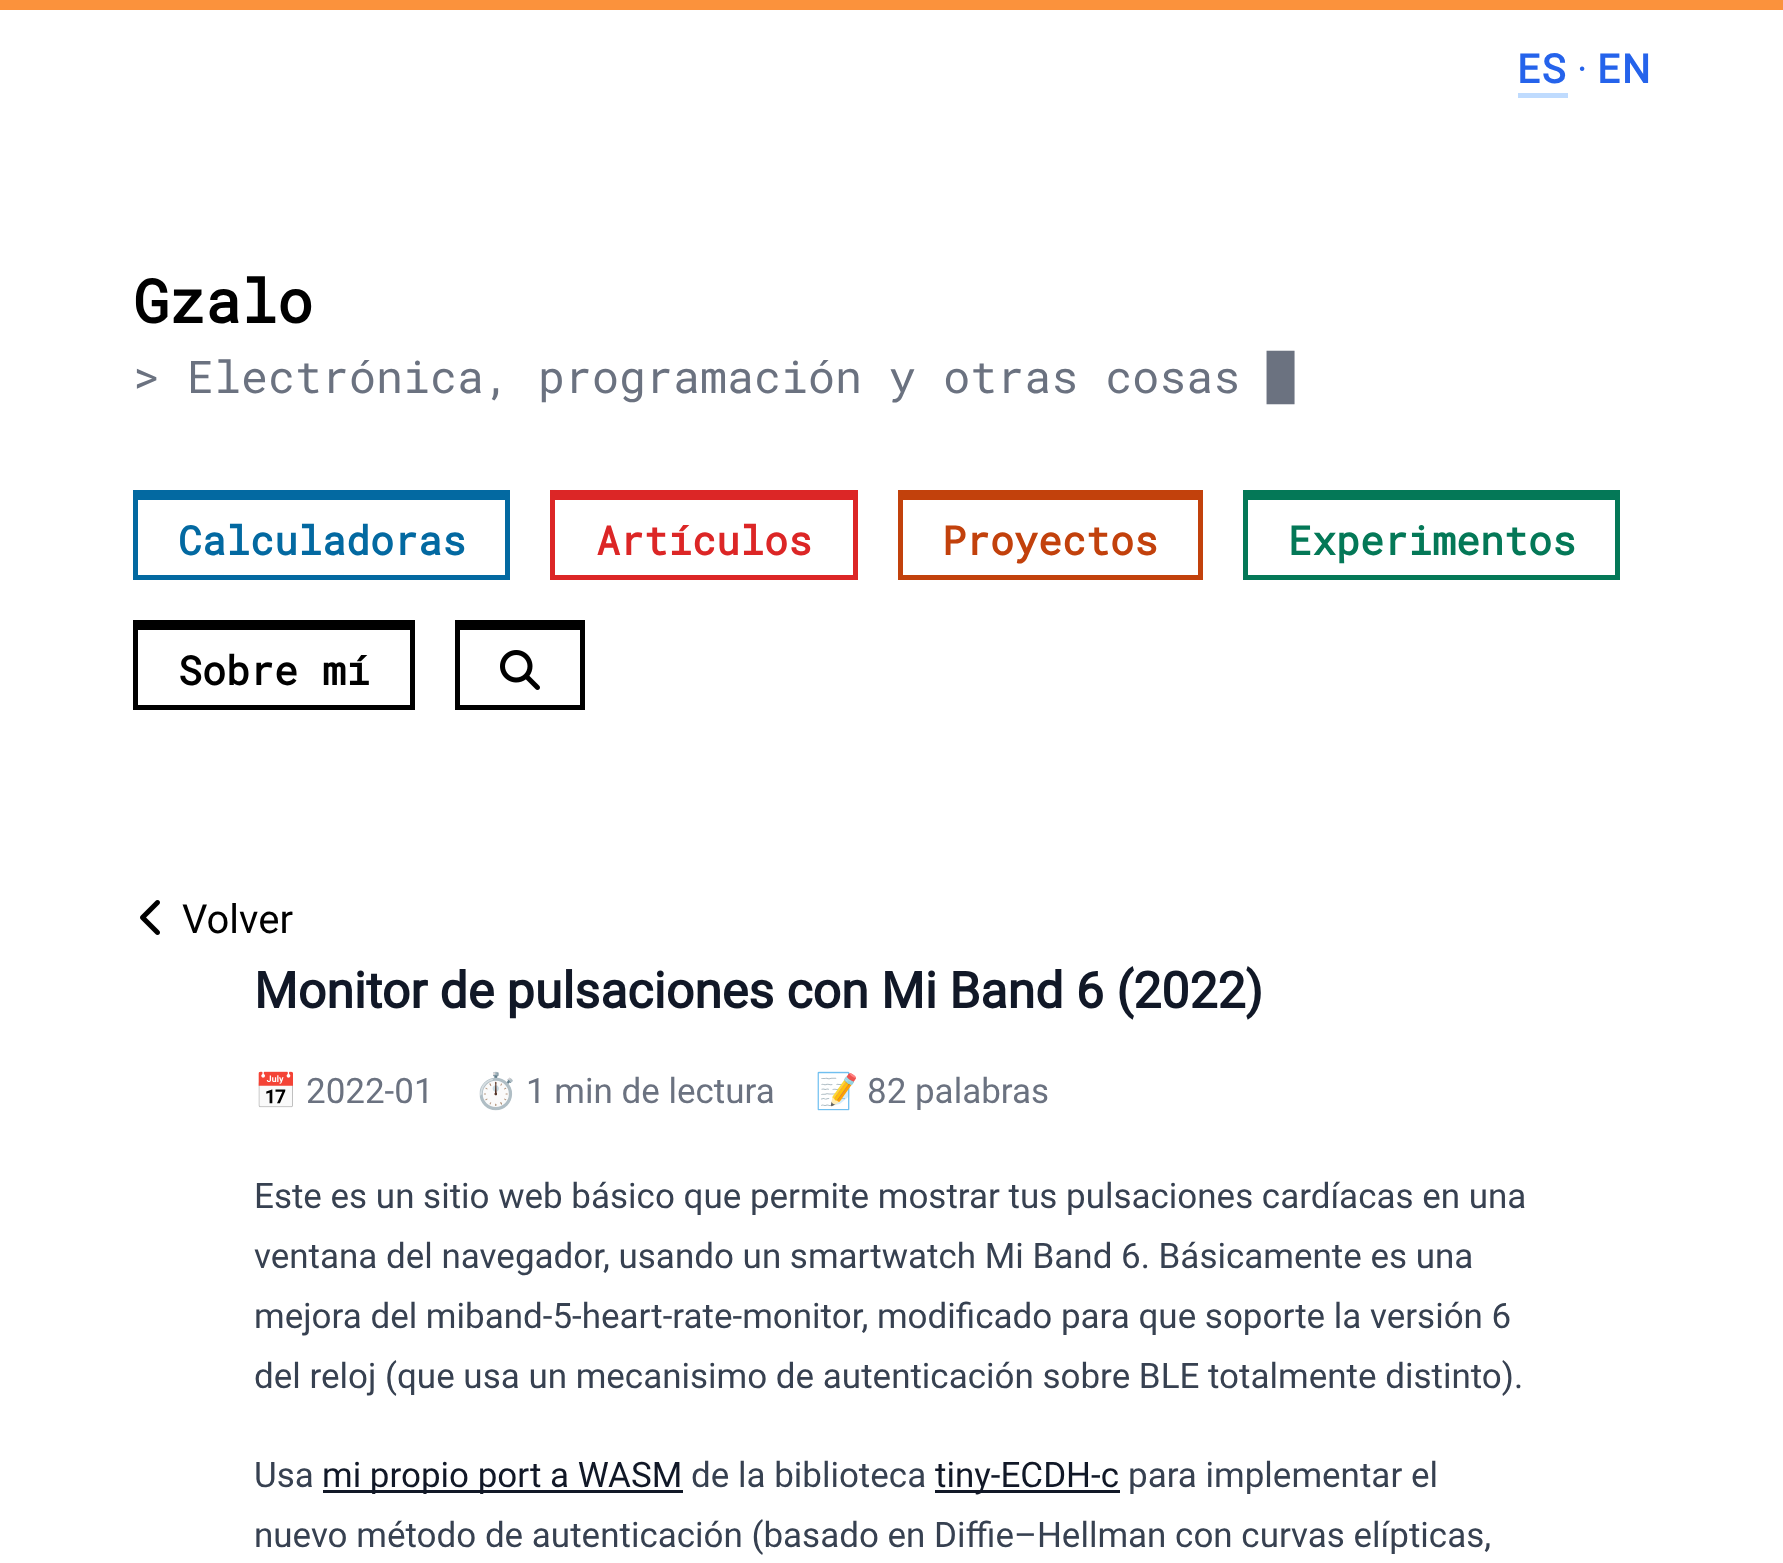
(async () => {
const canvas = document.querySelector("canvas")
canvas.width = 1783
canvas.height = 1563
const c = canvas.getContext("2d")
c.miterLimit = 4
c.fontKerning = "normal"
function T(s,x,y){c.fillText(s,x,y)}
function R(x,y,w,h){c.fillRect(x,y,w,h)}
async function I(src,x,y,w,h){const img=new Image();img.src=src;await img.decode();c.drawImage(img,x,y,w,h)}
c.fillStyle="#fff"
R(0,0,1783,1563)
c.fillStyle="#fb923c"
R(0,0,1783,10)
c.letterSpacing="2px"
c.font="bold 40px Roboto"
c.fillStyle="#2563eb"
T("ES",1517,83)
c.fillStyle="#bfdbfe"
R(1518,93,50,5)
c.letterSpacing="0px"
c.font="40px Roboto"
c.fillStyle="#2563eb"
T("·",1577,83)
c.letterSpacing="2px"
c.font="bold 40px Roboto"
T("EN",1597,83)
c.letterSpacing="0px"
c.font="bold 60px Roboto Mono"
c.fillStyle="#000"
T("Gzalo",133,323)
c.font="45px Roboto Mono"
c.fillStyle="#6b7280"
T("> Electrónica, programación y otras cosas",133,393)
c.font="45px DejaVu Sans Mono"
T("█",1267,393)
c.fillStyle="#0369a1"
R(138,490,367,10)
R(505,490,5,90)
R(133,575,377,5)
R(133,490,5,90)
c.font="bold 40px Roboto Mono"
T("Calculadoras",178,555)
c.fillStyle="#dc2626"
R(555,490,298,10)
R(853,490,5,90)
R(550,575,308,5)
R(550,490,5,90)
T("Artículos",596,555)
c.fillStyle="#c2410c"
R(903,490,295,10)
R(1198,490,5,90)
R(898,575,305,5)
R(898,490,5,90)
T("Proyectos",942,555)
c.fillStyle="#047857"
R(1248,490,367,10)
R(1615,490,5,90)
R(1243,575,377,5)
R(1243,490,5,90)
T("Experimentos",1288,555)
c.fillStyle="#000"
R(138,620,272,10)
R(410,620,5,90)
R(133,705,282,5)
R(133,620,5,90)
T("Sobre mí",178,685)
R(460,620,120,10)
R(580,620,5,90)
R(455,705,130,5)
R(455,620,5,90)
await I("1.png",500,650,40,40)
await I("2.png",140,900,20,35)
c.font="40px Roboto"
T("Volver",182,933)
c.font="bold 50px Roboto"
c.fillStyle="#111827"
T("Monitor de pulsaciones con Mi Band 6 (2022)",254,1008)
c.font="35px Noto Color Emoji"
c.fillStyle="#6b7280"
T("📅",254,1103)
c.font="35px Roboto"
T("2022-01",306,1103)
c.font="35px Noto Color Emoji"
T("⏱️",474,1103)
c.font="35px Roboto"
T("1 min de lectura",526,1103)
c.font="35px Noto Color Emoji"
T("📝",815,1103)
c.font="35px Roboto"
T("82 palabras",867,1103)
c.fillStyle="#374151"
T("Este es un sitio web básico que permite mostrar tus pulsaciones cardíacas en una",254,1208)
T("ventana del navegador, usando un smartwatch Mi Band 6. Básicamente es una",254,1268)
T("mejora del miband-5-heart-rate-monitor, modificado para que soporte la versión 6",254,1328)
T("del reloj (que usa un mecanisimo de autenticación sobre BLE totalmente distinto).",254,1388)
T("Usa",254,1487)
c.fillStyle="#111827"
R(323,1490,360,3)
T("mi propio port a WASM",322,1487)
c.fillStyle="#374151"
T("de la biblioteca",691,1487)
c.fillStyle="#111827"
R(935,1490,185,3)
T("tiny-ECDH-c",935,1487)
c.fillStyle="#374151"
T("para implementar el",1128,1487)
T("nuevo método de autenticación (basado en Diffie–Hellman con curvas elípticas,",254,1547)
})()
